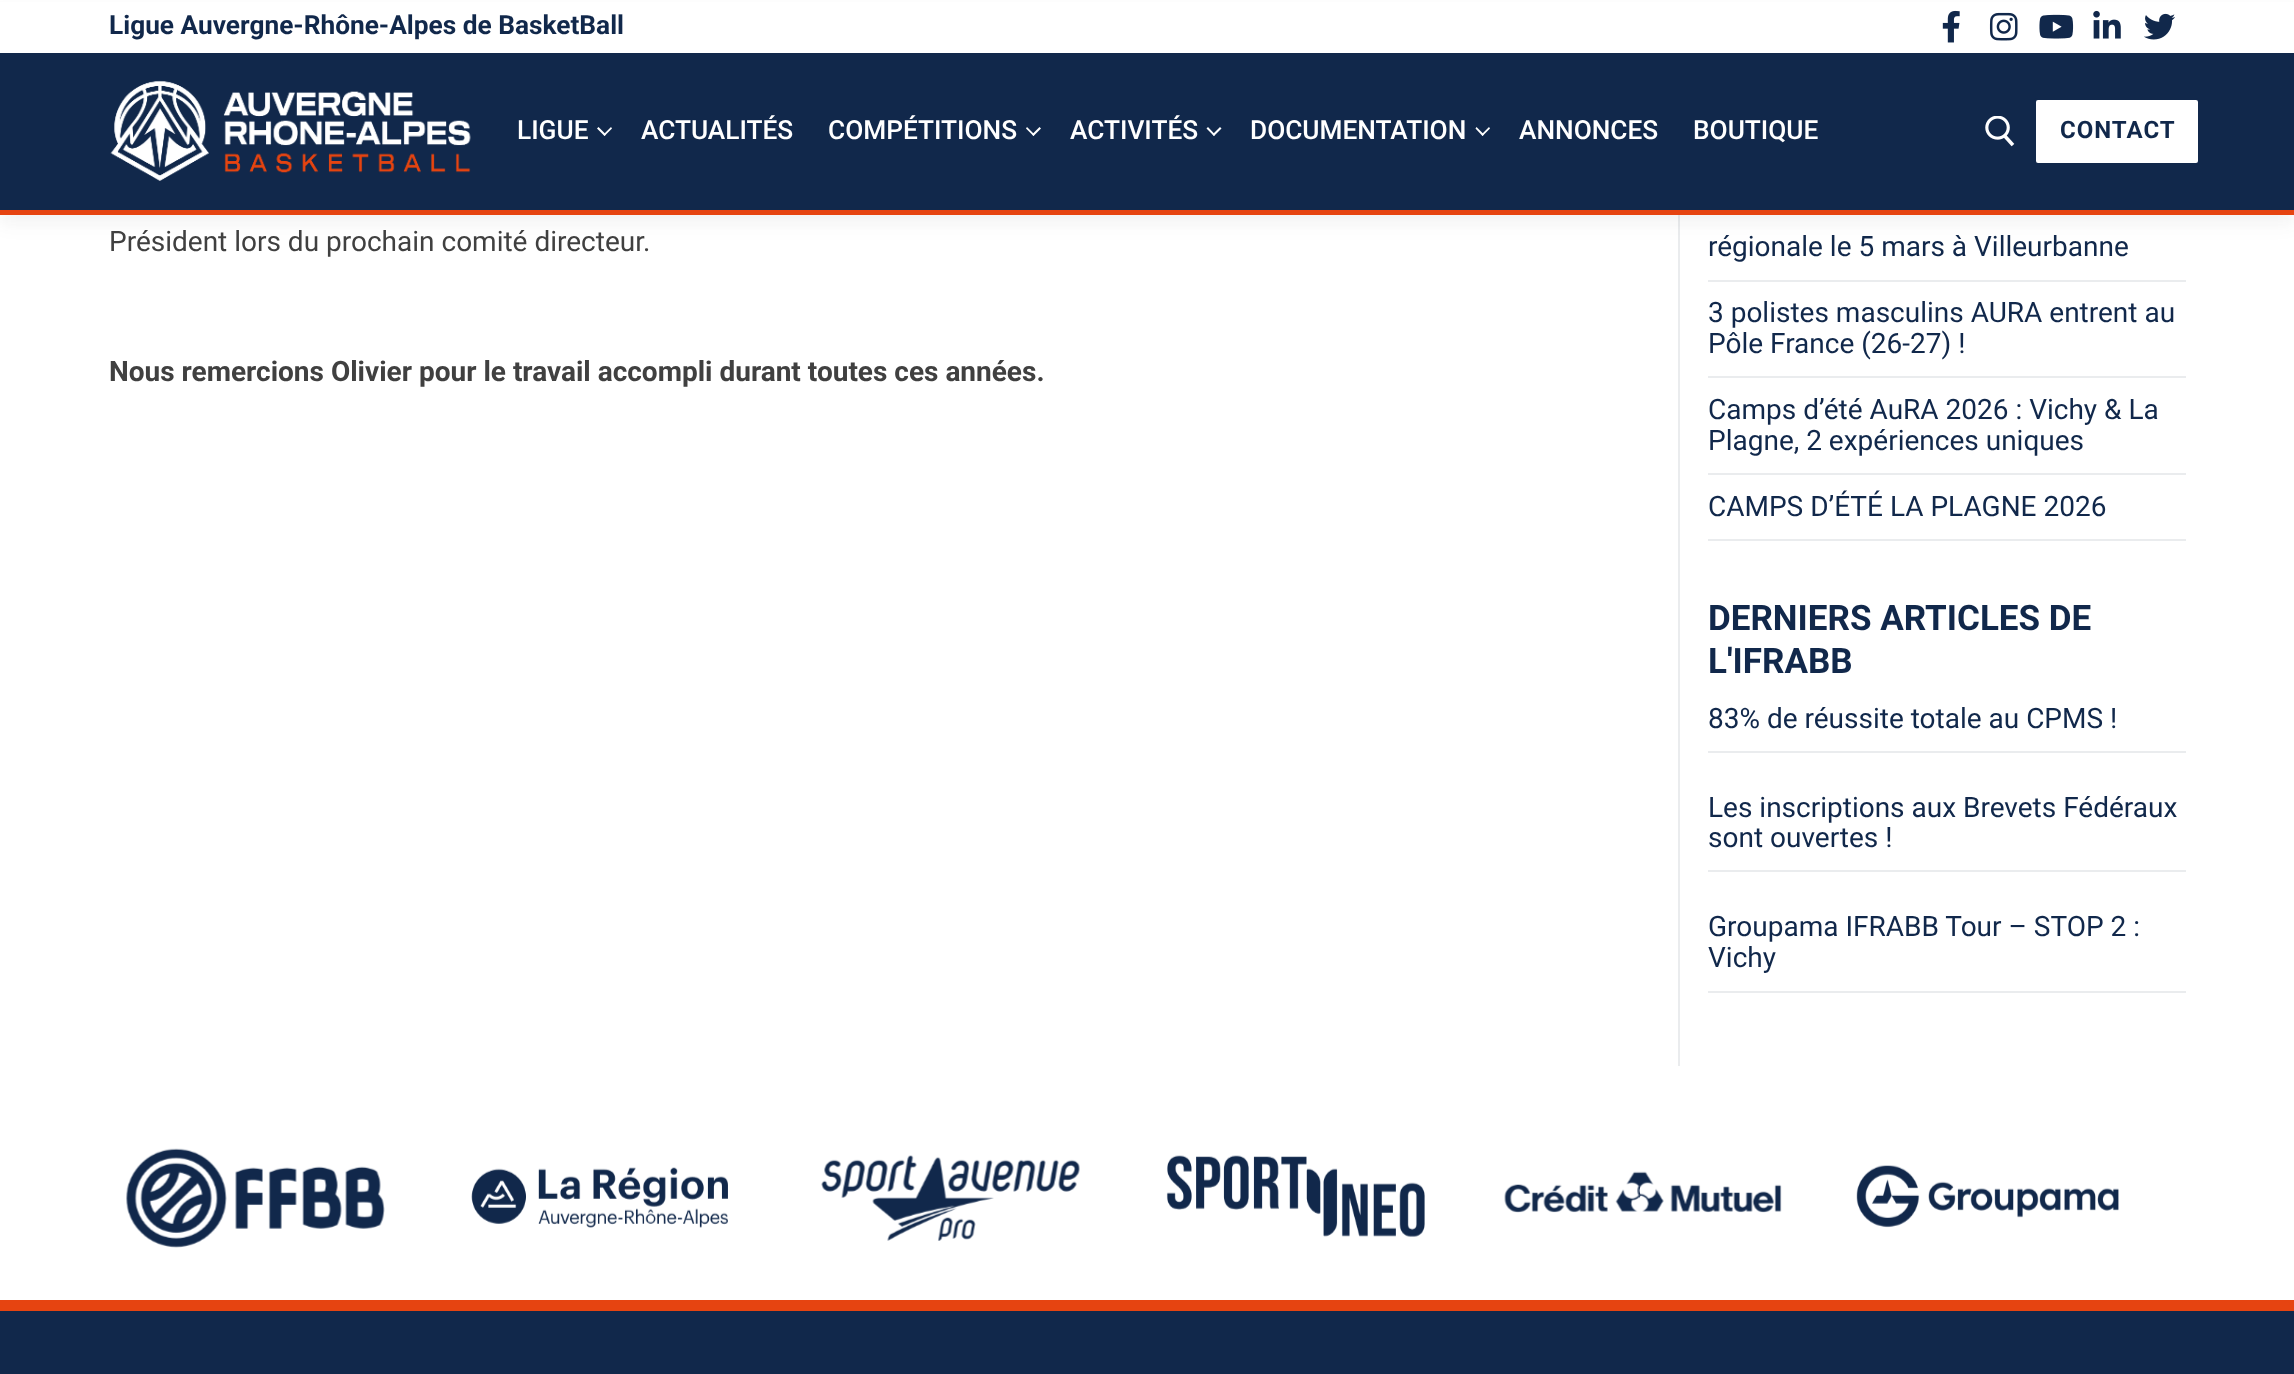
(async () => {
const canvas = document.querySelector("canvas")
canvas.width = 2294
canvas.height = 1374
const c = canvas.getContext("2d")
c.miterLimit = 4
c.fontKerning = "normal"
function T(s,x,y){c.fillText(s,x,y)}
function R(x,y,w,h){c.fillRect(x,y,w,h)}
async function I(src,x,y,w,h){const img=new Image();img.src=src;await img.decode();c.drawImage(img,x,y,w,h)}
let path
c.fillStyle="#fff"
R(0,0,2294,1374)
c.fillStyle="#eaecee"
R(1678,215,2,851)
c.fillStyle="#3232320f"
c.filter="blur(9px)"
c.beginPath()
c.rect(0,9,2294,215)
c.fill()
c.filter="none"
c.fillStyle="#fff"
R(0,2,2294,51)
c.font="bold 26.25px Roboto"
c.fillStyle="#11284b"
T("Ligue Auvergne-Rhône-Alpes de BasketBall",109,34)
await I("1.png",1942,10,18,33)
await I("2.png",1989,12,29,29)
await I("3.png",2039,14,35,25)
await I("4.png",2093,10,28,29)
await I("5.png",2144,13,31,27)
R(0,53,2294,157)
c.fillStyle="#e64411"
R(0,210,2294,5)
await I("6.png",110,80,361,101)
c.font="500 26.25px Roboto"
c.fillStyle="#fff"
T("LIGUE",517,139)
path = new Path2D("M604.5 136l-7.5-7.5l1.5-1.5l7.5 7.5z")
c.fill(path)
path = new Path2D("M604.5 136l-1-1.5l7.5-7.5l1 1.5z")
c.fill(path)
T("ACTUALITÉS",641,139)
T("COMPÉTITIONS",828,139)
path = new Path2D("M1033.5 136l-7.5-7.5l1-1.5l7.5 7.5z")
c.fill(path)
path = new Path2D("M1033.5 136l-1.5-1.5l7.5-7.5l1.5 1.5z")
c.fill(path)
T("ACTIVITÉS",1070,139)
path = new Path2D("M1214 136l-7.5-7.5l1.5-1.5l7 7.5z")
c.fill(path)
path = new Path2D("M1214 136l-1.5-1.5l7.5-7.5l1.5 1.5z")
c.fill(path)
T("DOCUMENTATION",1250,139)
path = new Path2D("M1482.5 136l-7-7.5l1-1.5l7.5 7.5z")
c.fill(path)
path = new Path2D("M1482.5 136l-1-1.5l7.5-7.5l1 1.5z")
c.fill(path)
T("ANNONCES",1519,139)
T("BOUTIQUE",1693,139)
await I("7.png",1985,116,30,31)
c.beginPath()
c.roundRect(2035,99,164,65,3)
c.fill()
c.strokeStyle="#11284b"
c.lineWidth=2
c.stroke()
c.letterSpacing="1px"
c.font="bold 24px Roboto"
c.fillStyle="#11284b"
T("CONTACT",2060,138)
c.letterSpacing="0px"
c.font="28px Roboto"
c.fillStyle="#404040"
T("Président lors du prochain comité directeur.",109,251)
c.font="bold 28px Roboto"
T("Nous remercions Olivier pour le travail accompli durant toutes ces années.",109,381)
c.fillStyle="#eaecee"
R(1708,280,478,2)
c.font="28px Roboto"
c.fillStyle="#11284b"
T("régionale le 5 mars à Villeurbanne",1708,256)
c.fillStyle="#eaecee"
R(1708,376,478,2)
c.fillStyle="#11284b"
T("3 polistes masculins AURA entrent au",1708,322)
T("Pôle France (26-27) !",1708,353)
c.fillStyle="#eaecee"
R(1708,473,478,2)
c.fillStyle="#11284b"
T("Camps d’été AuRA 2026 : Vichy & La",1708,419)
T("Plagne, 2 expériences uniques",1708,450)
c.fillStyle="#eaecee"
R(1708,539,478,2)
c.fillStyle="#11284b"
T("CAMPS D’ÉTÉ LA PLAGNE 2026",1708,516)
c.font="bold 35px Roboto"
T("DERNIERS ARTICLES DE",1708,630)
T("L'IFRABB",1708,673)
c.fillStyle="#eaecee"
R(1708,751,478,2)
c.font="28px Roboto"
c.fillStyle="#11284b"
T("83% de réussite totale au CPMS !",1708,728)
c.fillStyle="#eaecee"
R(1708,870,478,2)
c.fillStyle="#11284b"
T("Les inscriptions aux Brevets Fédéraux",1708,817)
T("sont ouvertes !",1708,847)
c.fillStyle="#eaecee"
R(1708,991,478,2)
c.fillStyle="#11284b"
T("Groupama IFRABB Tour – STOP 2 :",1708,936)
T("Vichy",1708,967)
await I("8.png",126,1148,259,100)
await I("9.png",471,1167,257,61)
await I("10.png",821,1155,259,86)
await I("11.png",1166,1155,259,82)
await I("12.png",1504,1171,278,42)
await I("13.png",1856,1165,263,63)
R(0,1311,2294,63)
c.fillStyle="#e64411"
R(0,1300,2294,11)
})()
